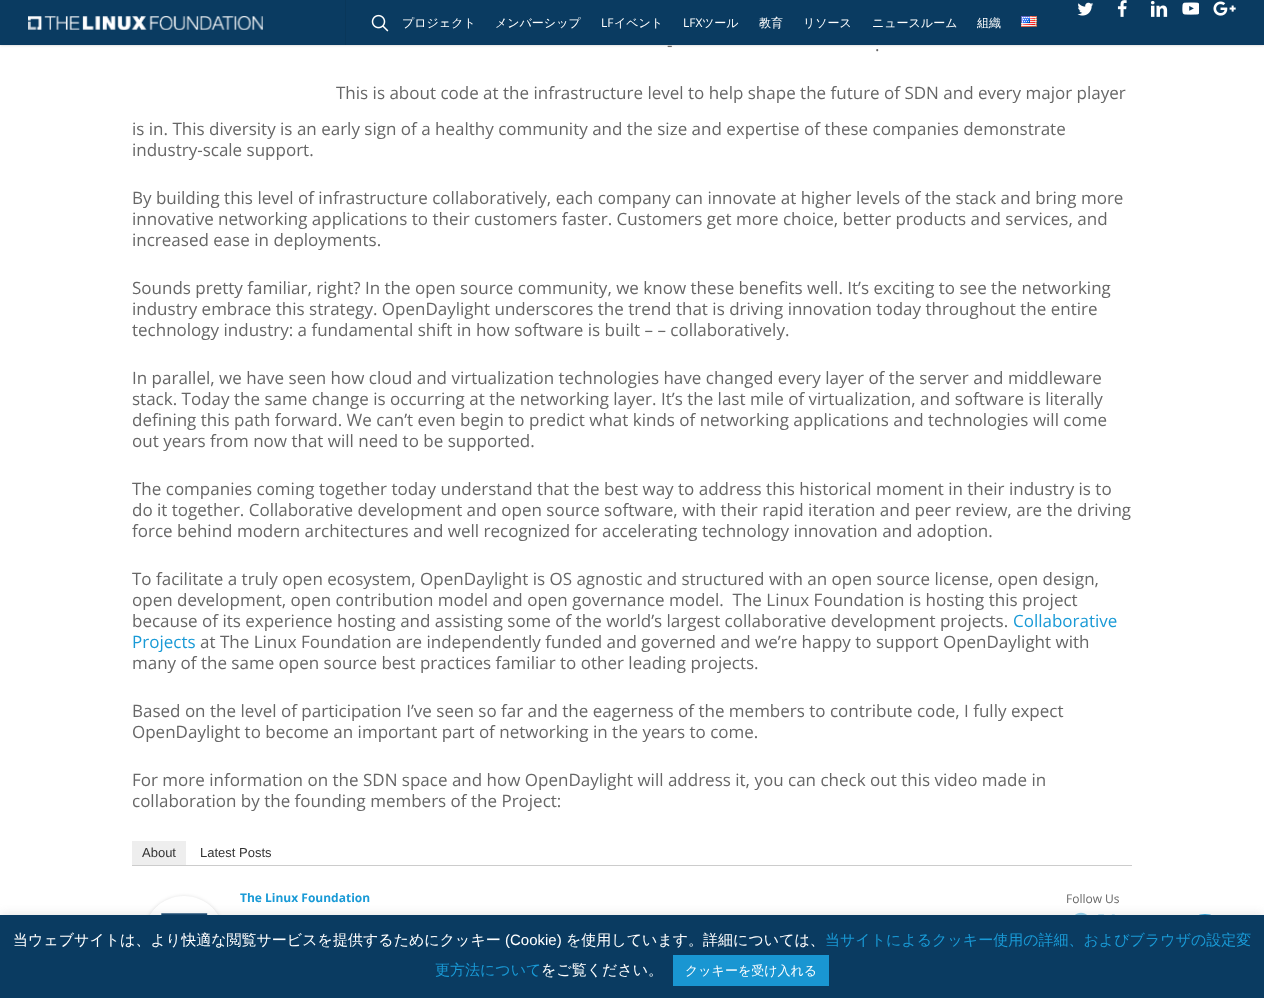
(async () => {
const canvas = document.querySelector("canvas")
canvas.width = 1264
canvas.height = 998
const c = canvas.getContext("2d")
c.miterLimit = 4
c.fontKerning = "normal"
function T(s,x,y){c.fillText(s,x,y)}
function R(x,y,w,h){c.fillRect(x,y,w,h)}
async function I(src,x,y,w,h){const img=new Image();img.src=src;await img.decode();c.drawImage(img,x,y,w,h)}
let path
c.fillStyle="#fff"
R(0,0,1264,998)
c.fillStyle="#00000038"
c.filter="blur(1.5px)"
c.beginPath()
c.rect(0,0,1264,45)
c.fill()
c.filter="none"
c.fillStyle="#0a3b61"
R(0,0,1264,45)
await I("1.png",28,16,235,14)
c.fillStyle="#09375a"
R(345,0,1,45)
await I("2.png",371,14,18,18)
await I("3.png",1077,2,17,14)
await I("4.png",1117,0,10,17)
await I("5.png",1150,0,18,17)
await I("6.png",1182,2,17,13)
await I("7.png",1213,1,23,15)
c.font="500 12px WenQuanYi Zen Hei"
c.fillStyle="#fff"
T("プロジェクト",402,27)
T("メンバーシップ",495,27)
c.font="12px Open Sans"
T("LF",601,27)
c.font="500 12px WenQuanYi Zen Hei"
T("イベント",614,27)
c.font="12px Open Sans"
T("LFX",683,27)
c.font="500 12px WenQuanYi Zen Hei"
T("ツール",702,27)
T("教育",759,27)
T("リソース",803,27)
T("ニュースルーム",872,27)
T("組織",977,27)
await I("8.png",1021,16,16,11)
c.font="17px Open Sans"
c.fillStyle="#676767"
T("-",667,51)
T(".",875,51)
T("This is about code at the infrastructure level to help shape the future of SDN and every major player",336,99)
T("is in. This diversity is an early sign of a healthy community and the size and expertise of these companies demonstrate",132,135)
T("industry-scale support.",132,156)
T("By building this level of infrastructure collaboratively, each company can innovate at higher levels of the stack and bring more",132,204)
T("innovative networking applications to their customers faster. Customers get more choice, better products and services, and",132,225)
T("increased ease in deployments.",132,246)
T("Sounds pretty familiar, right? In the open source community, we know these benefits well. It’s exciting to see the networking",132,294)
T("industry embrace this strategy. OpenDaylight underscores the trend that is driving innovation today throughout the entire",132,315)
T("technology industry: a fundamental shift in how software is built – – collaboratively.",132,336)
T("In parallel, we have seen how cloud and virtualization technologies have changed every layer of the server and middleware",132,384)
T("stack. Today the same change is occurring at the networking layer. It’s the last mile of virtualization, and software is literally",132,405)
T("defining this path forward. We can’t even begin to predict what kinds of networking applications and technologies will come",132,426)
T("out years from now that will need to be supported.",132,447)
T("The companies coming together today understand that the best way to address this historical moment in their industry is to",132,495)
T("do it together. Collaborative development and open source software, with their rapid iteration and peer review, are the driving",132,516)
T("force behind modern architectures and well recognized for accelerating technology innovation and adoption.",132,537)
T("To facilitate a truly open ecosystem, OpenDaylight is OS agnostic and structured with an open source license, open design,",132,585)
T("open development, open contribution model and open governance model.  The Linux Foundation is hosting this project",132,606)
T("because of its experience hosting and assisting some of the world’s largest collaborative development projects.",132,627)
c.fillStyle="#199ad6"
T("Collaborative",1013,627)
T("Projects",132,648)
c.fillStyle="#676767"
T("at The Linux Foundation are independently funded and governed and we’re happy to support OpenDaylight with",200,648)
T("many of the same open source best practices familiar to other leading projects.",132,669)
T("Based on the level of participation I’ve seen so far and the eagerness of the members to contribute code, I fully expect",132,717)
T("OpenDaylight to become an important part of networking in the years to come.",132,738)
T("For more information on the SDN space and how OpenDaylight will address it, you can check out this video made in",132,786)
T("collaboration by the founding members of the Project:",132,807)
c.fillStyle="#ccc"
R(132,865,1000,1)
c.fillStyle="#eee"
R(132,841,54,24)
c.font="13px Liberation Sans"
c.fillStyle="#333"
T("About",142,857)
T("Latest Posts",200,857)
c.save()
path = new Path2D("M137 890h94v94h-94zm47 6c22 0 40 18 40 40c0 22-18 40-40 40c-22 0-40-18-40-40c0-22 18-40 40-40z")
c.clip(path,"evenodd")
c.fillStyle="#00000033"
c.filter="blur(2px)"
c.beginPath()
c.roundRect(144,897,80,80,40)
c.fill()
c.filter="none"
c.restore()
await I("9.png",150,903,68,12)
c.font="bold 12px Open Sans"
c.fillStyle="#199ad6"
T("The Linux Foundation",240,902)
c.font="12px Open Sans"
c.fillStyle="#676767"
T("Follow Us",1066,903)
await I("10.png",1075,912,12,3)
await I("11.png",1098,914,17,1)
c.fillStyle="#199ad6"
c.beginPath()
c.arc(1205,939,25,0,7)
c.fill()
c.fillStyle="#acabab4d"
c.filter="blur(5px)"
c.beginPath()
c.rect(0,914,1264,83)
c.fill()
c.filter="none"
c.fillStyle="#0a3b61"
R(0,915,1264,83)
c.font="500 15px WenQuanYi Zen Hei"
c.fillStyle="#fff"
T("当ウェブサイトは、より快適な閲覧サービスを提供するためにクッキー",13,945)
c.font="15px Liberation Sans"
T("(Cookie)",505,945)
c.font="500 15px WenQuanYi Zen Hei"
T("を使用しています。詳細については、",566,945)
c.fillStyle="#199ad6"
T("当サイトによるクッキー使用の詳細、およびブラウザの設定変",825,945)
T("更方法について",435,975)
c.fillStyle="#fff"
T("をご覧ください。",541,975)
c.fillStyle="#1996d2"
R(673,955,156,31)
c.font="500 13px WenQuanYi Zen Hei"
c.fillStyle="#fff"
T("クッキーを受け入れる",685,975)
})()
